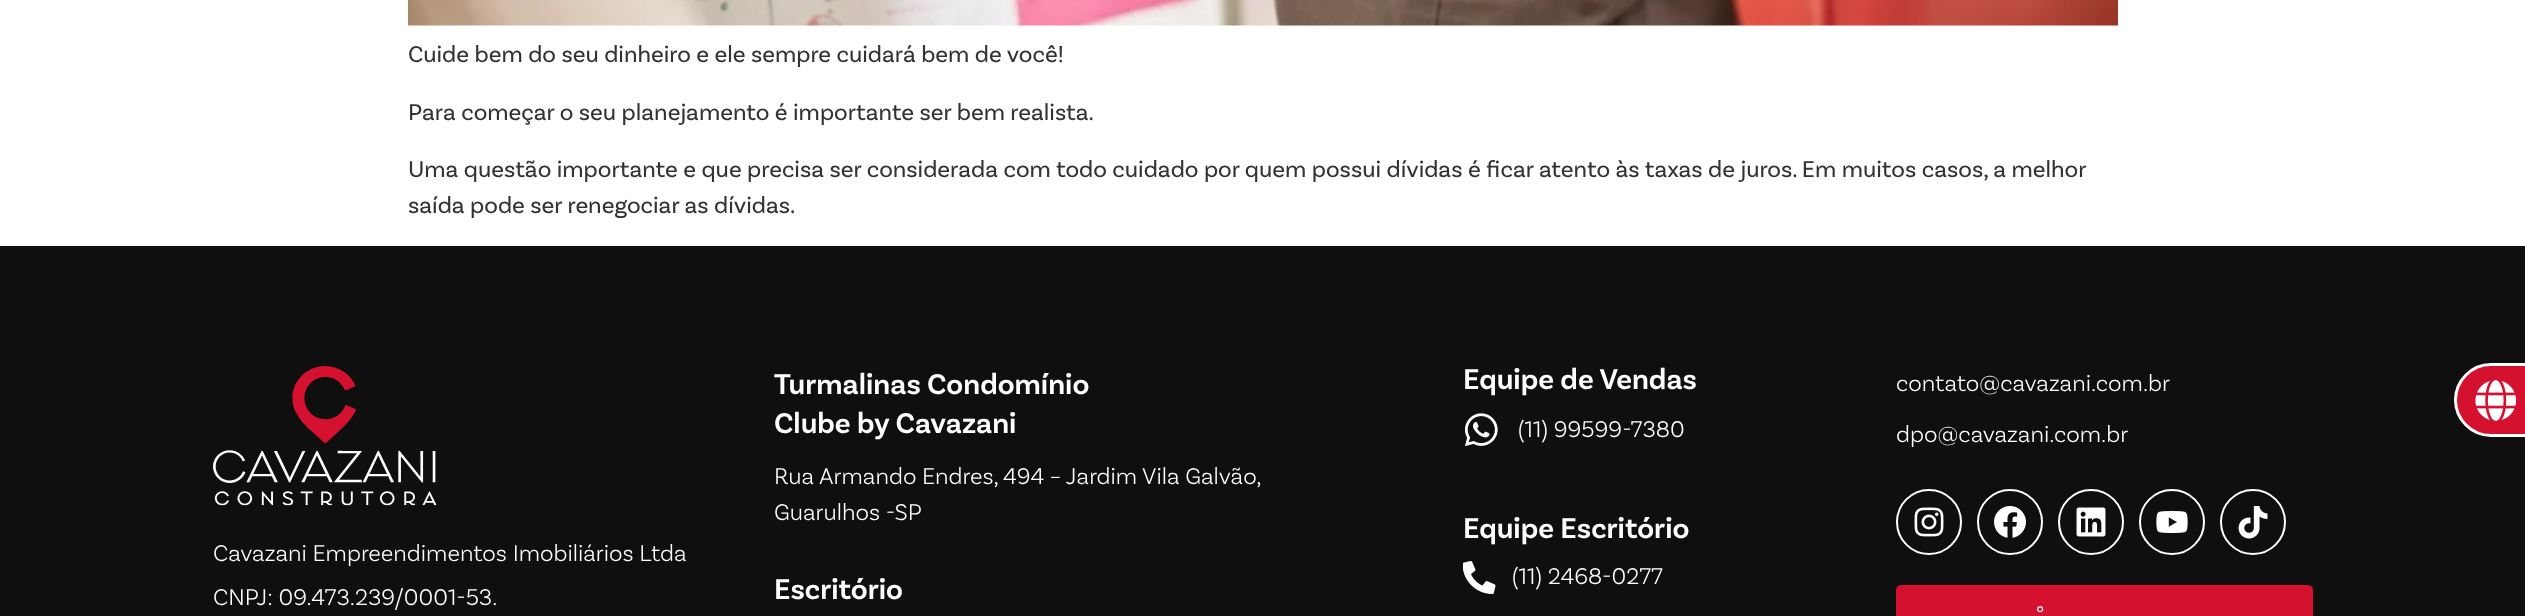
(async () => {
const canvas = document.querySelector("canvas")
canvas.width = 2525
canvas.height = 616
const c = canvas.getContext("2d")
c.miterLimit = 4
c.fontKerning = "normal"
function T(s,x,y){c.fillText(s,x,y)}
function R(x,y,w,h){c.fillRect(x,y,w,h)}
function Q(x,y,w,h,r){c.beginPath();c.roundRect(x,y,w,h,r);c.fill()}
async function I(src,x,y,w,h){const img=new Image();img.src=src;await img.decode();c.drawImage(img,x,y,w,h)}
let path
c.fillStyle="#fff"
R(0,0,2525,616)
await I("1.png",408,0,1710,26)
c.font="24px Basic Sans"
c.fillStyle="#333"
T("Cuide bem do seu dinheiro e ele sempre cuidará bem de você!",408,62)
T("Para começar o seu planejamento é importante ser bem realista.",408,120)
T("Uma questão importante e que precisa ser considerada com todo cuidado por quem possui dívidas é ficar atento às taxas de juros. Em muitos casos, a melhor",408,177)
T("saída pode ser renegociar as dívidas.",408,213)
c.fillStyle="#0f0f0f"
R(0,246,2525,370)
await I("2.png",213,366,224,140)
c.font="300 24px Basic Sans"
c.fillStyle="#fff"
T("Cavazani Empreendimentos Imobiliários Ltda",213,561)
T("CNPJ: 09.473.239/0001-53.",213,605)
c.font="600 30px Basic Sans"
T("Turmalinas Condomínio",774,394)
T("Clube by Cavazani",774,433)
c.wordSpacing="-0.25px"
c.font="300 24px Basic Sans"
T("Rua Armando Endres, 494 – Jardim Vila Galvão,",774,484)
c.wordSpacing="0px"
T("Guarulhos -SP",774,520)
c.font="600 30px Basic Sans"
T("Escritório",774,599)
T("Equipe de Vendas",1463,389)
await I("3.png",1464,413,34,34)
c.font="300 24px Basic Sans"
T("(11) 99599-7380",1518,437)
c.font="600 30px Basic Sans"
T("Equipe Escritório",1463,538)
await I("4.png",1463,561,33,33)
c.font="300 24px Basic Sans"
T("(11) 2468-0277",1512,584)
T("contato@cavazani.com.br",1896,391)
T("dpo@cavazani.com.br",1896,442)
c.beginPath()
c.arc(1929,522,32,0,7)
c.strokeStyle="#fff"
c.lineWidth=2
c.stroke()
await I("5.png",1914,507,30,30)
c.beginPath()
c.arc(2010,522,32,0,7)
c.stroke()
await I("6.png",1994,506,32,32)
c.beginPath()
c.arc(2091,522,32,0,7)
c.stroke()
await I("7.png",2076,507,30,30)
c.beginPath()
c.arc(2172,522,32,0,7)
c.stroke()
await I("8.png",2156,511,32,22)
c.beginPath()
c.arc(2253,522,32,0,7)
c.stroke()
await I("9.png",2238,506,30,33)
c.fillStyle="#d51130"
Q(1896,585,417,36,5)
c.font="24px Basic Sans"
c.fillStyle="#fff"
T("°",2036,622)
c.fillStyle="#d51130"
path = new Path2D("M2491 364.5h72.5v71h-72.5c-19.5 0-35.5-16-35.5-35.5c0-19.5 16-35.5 35.5-35.5z")
c.fill(path)
c.lineWidth=3
c.stroke(path)
await I("10.png",2475,380,42,41)
})()
